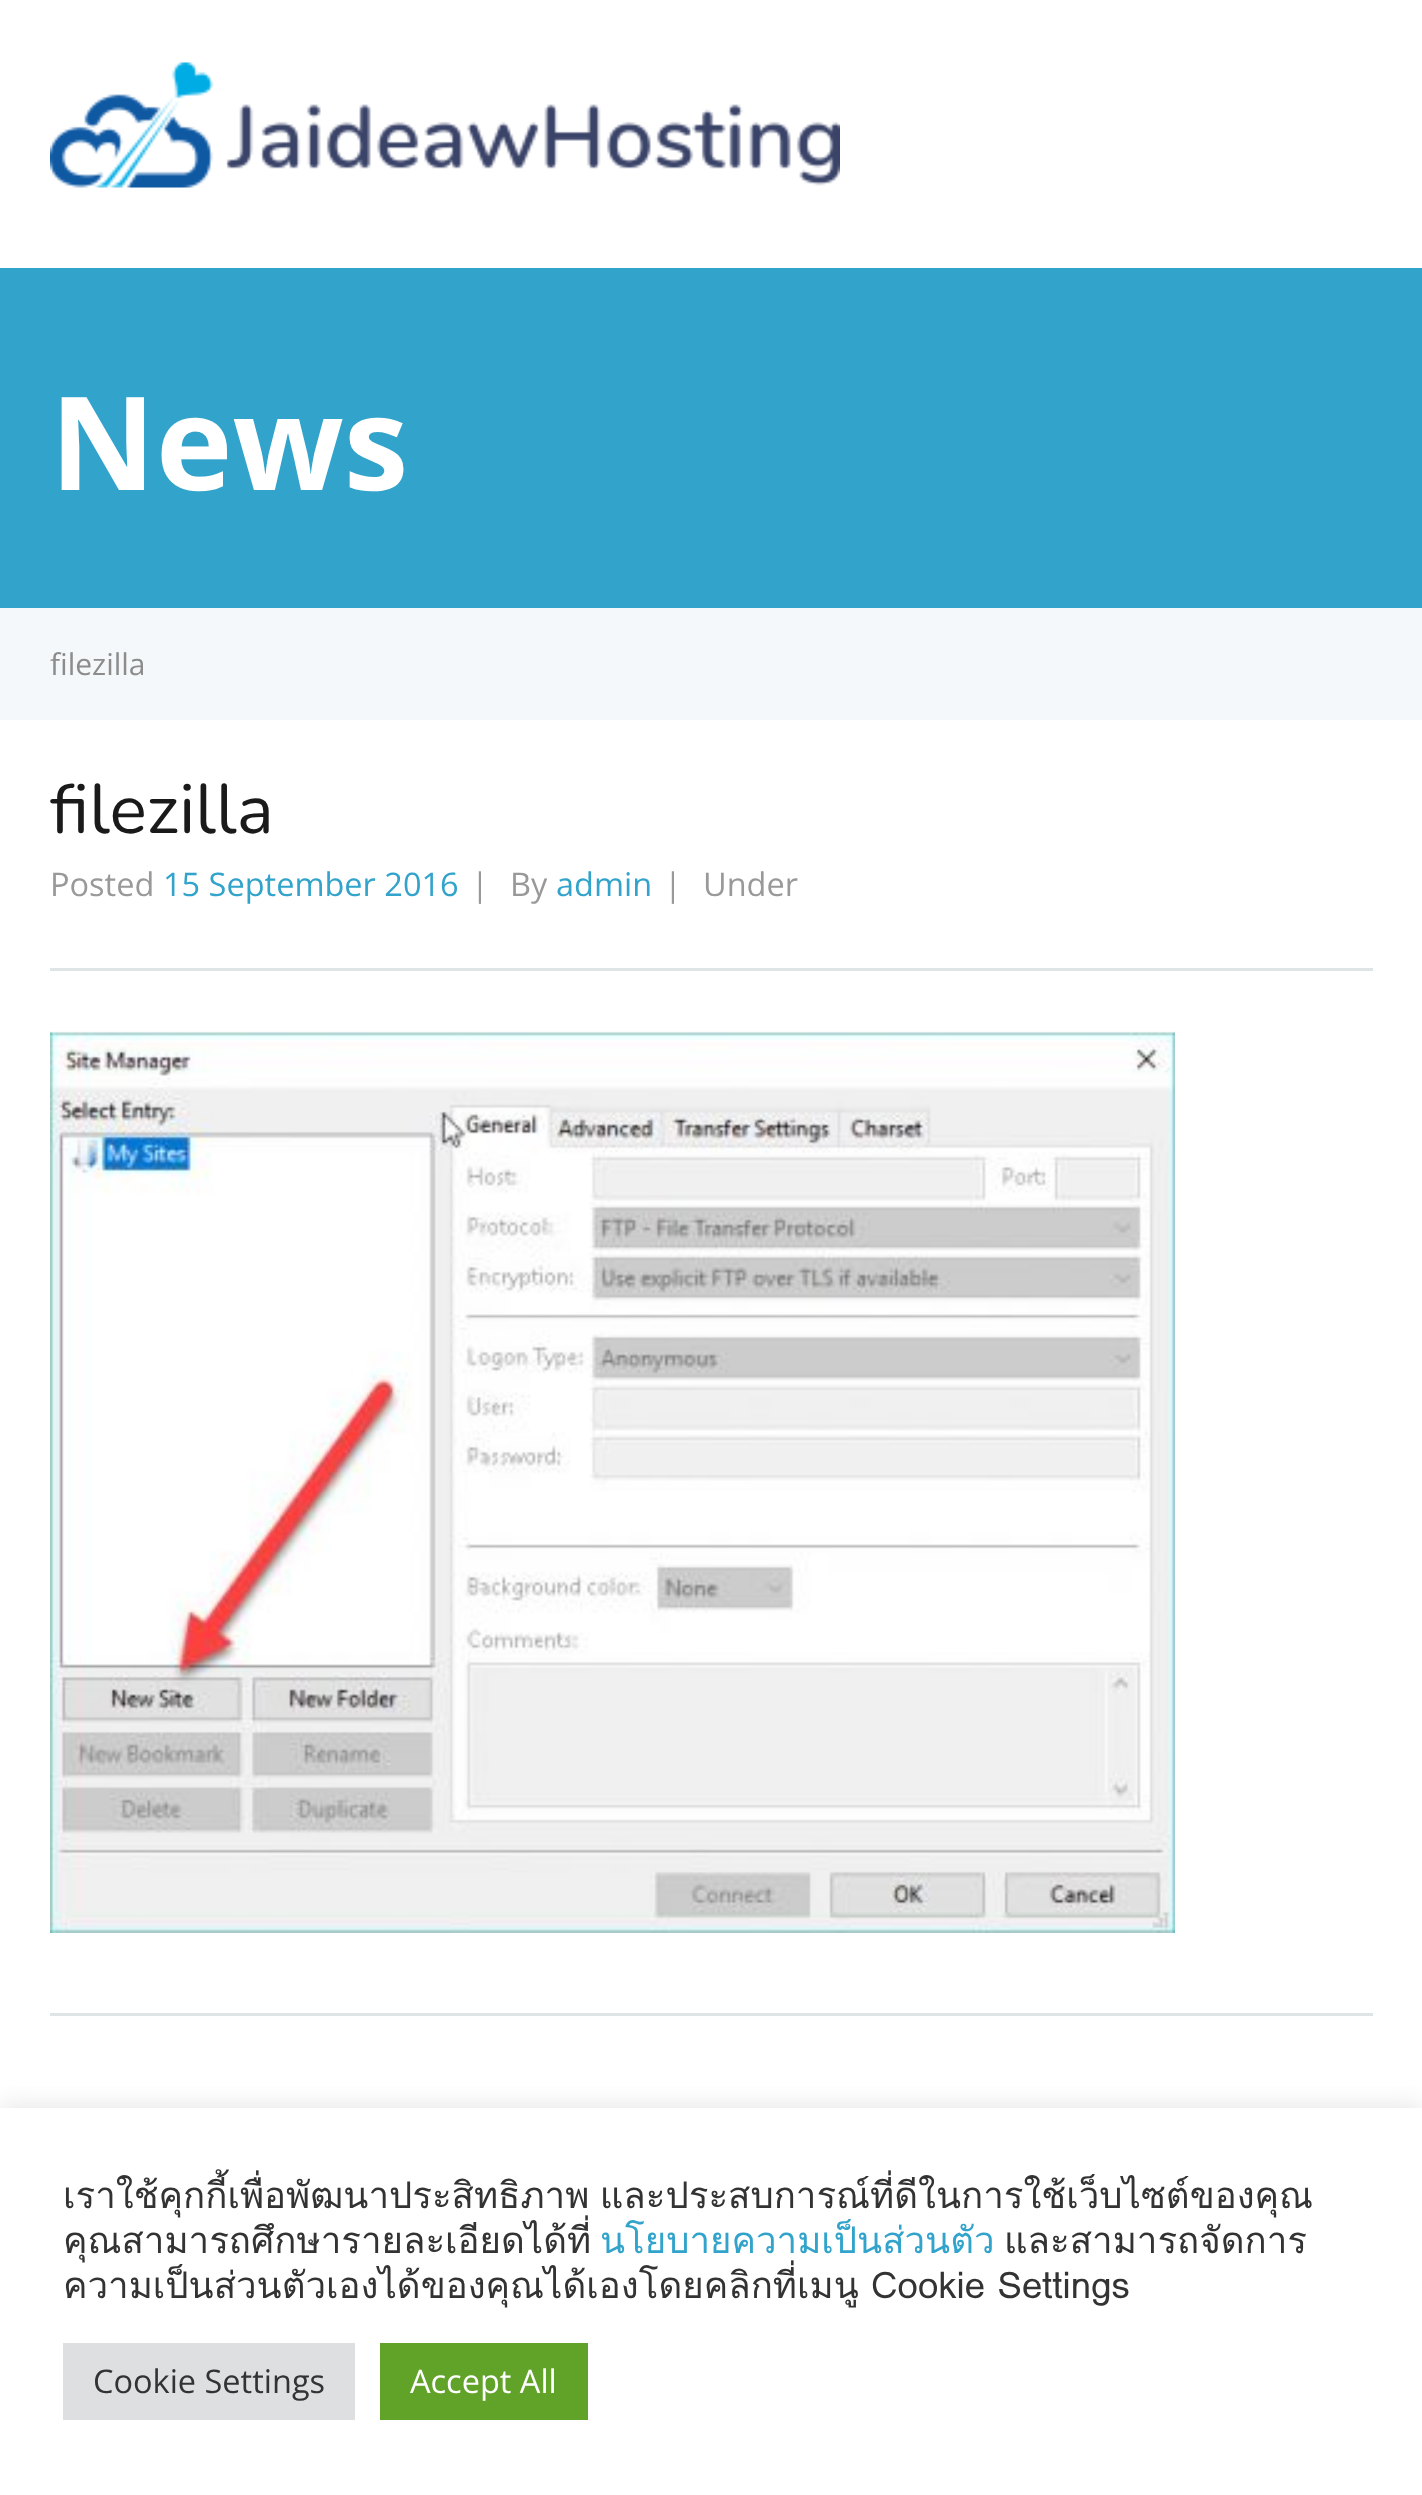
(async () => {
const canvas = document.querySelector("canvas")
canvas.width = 1422
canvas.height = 2495
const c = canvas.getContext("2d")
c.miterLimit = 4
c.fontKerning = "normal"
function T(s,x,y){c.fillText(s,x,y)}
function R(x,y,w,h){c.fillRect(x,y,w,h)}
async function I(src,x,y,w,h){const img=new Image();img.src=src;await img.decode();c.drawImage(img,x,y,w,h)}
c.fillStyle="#fff"
R(0,0,1422,2495)
await I("1.png",50,62,790,126)
c.fillStyle="#32a3cb"
R(0,268,1422,340)
c.font="bold 130px Open Sans"
c.fillStyle="#fff"
T("News",50,490)
c.fillStyle="#f5f8fa"
R(0,608,1422,112)
c.font="30px Open Sans"
c.fillStyle="#8c8c8c"
T("filezilla",50,675)
c.fillStyle="#dfe4e6"
R(50,2013,1323,3)
R(50,968,1323,3)
c.font="200 70px Nunito"
c.fillStyle="#1a1a1a"
T("filezilla",50,833)
c.font="32.5px Open Sans"
c.fillStyle="#999"
T("Posted",50,896)
c.fillStyle="#32a3cb"
T("15 September 2016",163,896)
c.fillStyle="#999"
T("|",471,896)
T("By",510,896)
c.fillStyle="#32a3cb"
T("admin",556,896)
c.fillStyle="#999"
T("|",664,896)
T("Under",703,896)
await I("2.png",50,1031,1125,902)
c.save()
c.beginPath()
c.rect(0,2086,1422,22)
c.clip()
c.fillStyle="#acabab4d"
c.filter="blur(12.5px)"
c.beginPath()
c.rect(0,2105,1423,388)
c.fill()
c.filter="none"
c.restore()
c.wordSpacing="-2px"
c.font="36.65px Loma"
c.fillStyle="#333"
T("เราใช้คุกกี้เพื่อพัฒนาประสิทธิภาพ และประสบการณ์ที่ดีในการใช้เว็บไซต์ของคุณ",63,2208)
c.wordSpacing="0px"
T("คุณสามารถศึกษารายละเอียดได้ที่",63,2253)
c.fillStyle="#32a3cb"
T("นโยบายความเป็นส่วนตัว",600,2253)
c.fillStyle="#333"
T("และสามารถจัดการ",1004,2253)
T("ความเป็นส่วนตัวเองได้ของคุณได้เองโดยคลิกที่เมนู Cookie Settings",63,2298)
c.fillStyle="#dedfe0"
R(63,2343,292,77)
c.font="32.5px Open Sans"
c.fillStyle="#333"
T("Cookie Settings",93,2393)
c.fillStyle="#61a229"
R(380,2343,208,77)
c.fillStyle="#fff"
T("Accept All",410,2393)
})()
